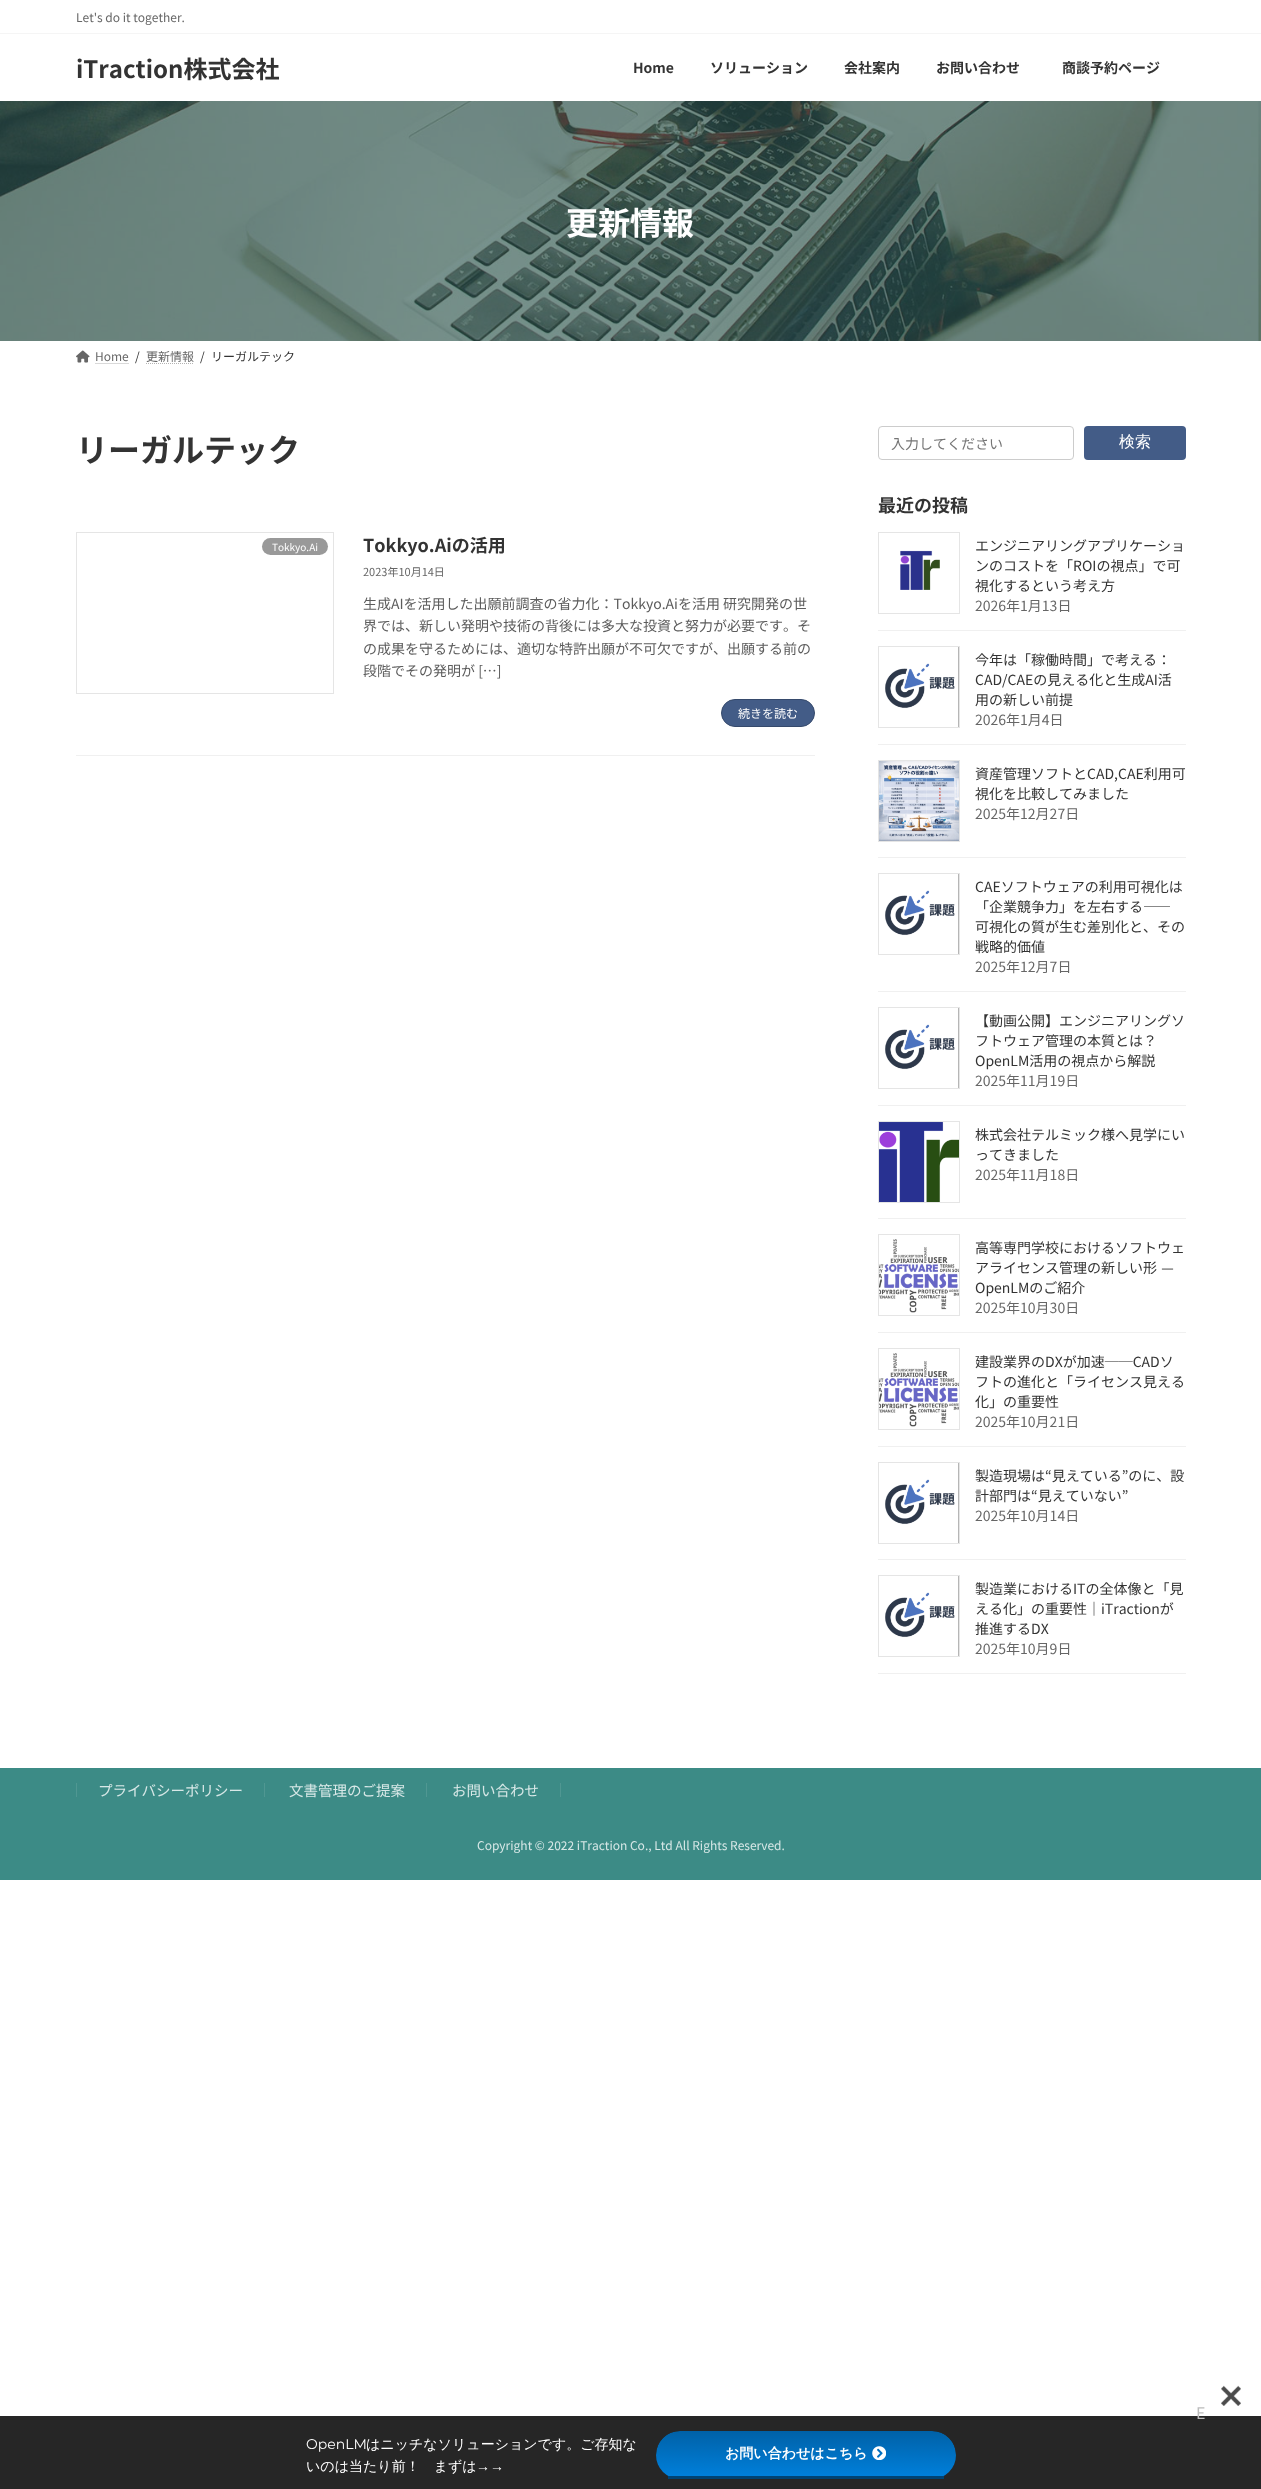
(async () => {
const canvas = document.querySelector("canvas")
canvas.width = 1261
canvas.height = 2489
const c = canvas.getContext("2d")
c.miterLimit = 4
c.fontKerning = "none"
function T(s,x,y){c.fillText(s,x,y)}
function R(x,y,w,h){c.fillRect(x,y,w,h)}
function Q(x,y,w,h,r){c.beginPath();c.roundRect(x,y,w,h,r);c.fill()}
async function I(src,x,y,w,h){const img=new Image();img.src=src;await img.decode();c.drawImage(img,x,y,w,h)}
let gradient, path
c.fillStyle="#fff"
R(0,0,1261,2489)
c.fillStyle="#f5f5f5"
R(0,33,1261,1)
c.font="12px Noto Sans JP"
c.fillStyle="#666"
T("Let's do it together.",76,22)
c.font="bold 24px Noto Sans JP"
c.fillStyle="#333"
T("iTraction株式会社",76,78)
c.font="bold 14px Noto Sans JP"
T("Home",633,73)
T("ソリューション",710,73)
T("会社案内",844,73)
T("お問い合わせ",936,73)
T("商談予約ページ",1062,73)
await I("1.png",0,101,1261,240)
c.font="bold 32px Noto Sans JP"
c.fillStyle="#fff"
T("更新情報",566,235)
await I("2.png",76,350,14,13)
c.font="12px Noto Sans JP"
c.fillStyle="#666"
T("Home",95,361)
path = new Path2D("M95.5 363.5h33.5")
c.strokeStyle="#b3b3b3"
c.setLineDash([1,1])
c.stroke(path)
c.fillStyle="#333"
T("/",135,361)
c.fillStyle="#666"
T("更新情報",146,361)
path = new Path2D("M146 363.5h48")
c.stroke(path)
c.fillStyle="#333"
T("/",200,361)
T("リーガルテック",211,361)
c.font="bold 32px Noto Sans JP"
T("リーガルテック",76,462)
c.fillStyle="#f0f0f0"
R(76,755,739,1)
c.strokeStyle="#e5e5e5"
c.setLineDash([])
c.strokeRect(76.5,532.5,257,161)
c.fillStyle="#999"
Q(262,538,66,17,8.5)
c.font="10px Noto Sans JP"
c.fillStyle="#fff"
T("Tokkyo.Ai",272,551)
c.font="bold 18px Noto Sans JP"
c.fillStyle="#333"
T("Tokkyo.Aiの活用",363,552)
c.font="11px Noto Sans JP"
c.fillStyle="#666"
T("2023年10月14日",363,576)
c.font="14px Noto Sans JP"
c.fillStyle="#5c5c5c"
T("生成AIを活用した出願前調査の省力化：Tokkyo.Aiを活用 研究開発の世",363,609)
T("界では、新しい発明や技術の背後には多大な投資と努力が必要です。そ",363,631)
T("の成果を守るためには、適切な特許出願が不可欠ですが、出願する前の",363,654)
T("段階でその発明が […]",363,676)
c.fillStyle="#435c87"
c.beginPath()
c.roundRect(721.5,699.5,93,27,13.5)
c.fill()
c.strokeStyle="#364a6c"
c.stroke()
c.font="12px Noto Sans JP"
c.fillStyle="#fff"
T("続きを読む",738,718)
c.beginPath()
c.roundRect(878.5,426.5,195,33,3.5)
c.strokeStyle="#ccc"
c.stroke()
c.font="14px Noto Sans JP"
c.fillStyle="#757575"
T("入力してください",891,449)
c.fillStyle="#435c87"
Q(1084,426,102,34,4)
c.font="500 16px WenQuanYi Zen Hei"
c.fillStyle="#fff"
T("検索",1119,447)
c.font="bold 18px Noto Sans JP"
c.fillStyle="#333"
T("最近の投稿",878,512)
c.fillStyle="#f0f0f0"
R(878,630,308,1)
c.strokeStyle="#e5e5e5"
c.strokeRect(878.5,532.5,81,81)
await I("3.png",900,550,40,40)
c.font="14px Noto Sans JP"
c.fillStyle="#333"
T("エンジニアリングアプリケーショ",975,551)
T("ンのコストを「ROIの視点」で可",975,571)
T("視化するという考え方",975,591)
c.fillStyle="#666"
T("2026年1月13日",975,611)
c.fillStyle="#f0f0f0"
R(878,744,308,1)
c.strokeRect(878.5,646.5,81,81)
await I("4.png",885,647,74,80)
c.fillStyle="#333"
T("今年は「稼働時間」で考える：",975,665)
T("CAD/CAEの見える化と生成AI活",975,685)
T("用の新しい前提",975,705)
c.fillStyle="#666"
T("2026年1月4日",975,725)
c.fillStyle="#f0f0f0"
R(878,857,308,1)
c.strokeRect(878.5,760.5,81,81)
await I("5.png",879,761,80,80)
c.fillStyle="#333"
T("資産管理ソフトとCAD,CAE利用可",975,779)
T("視化を比較してみました",975,799)
c.fillStyle="#666"
T("2025年12月27日",975,819)
c.fillStyle="#f0f0f0"
R(878,991,308,1)
c.strokeRect(878.5,873.5,81,81)
await I("6.png",885,874,74,80)
c.fillStyle="#333"
T("CAEソフトウェアの利用可視化は",975,892)
T("「企業競争力」を左右する――",975,912)
T("可視化の質が生む差別化と、その",975,932)
T("戦略的価値",975,952)
c.fillStyle="#666"
T("2025年12月7日",975,972)
c.fillStyle="#f0f0f0"
R(878,1105,308,1)
c.strokeRect(878.5,1007.5,81,81)
await I("7.png",885,1008,74,80)
c.fillStyle="#333"
T("【動画公開】エンジニアリングソ",975,1026)
T("フトウェア管理の本質とは？",975,1046)
T("OpenLM活用の視点から解説",975,1066)
c.fillStyle="#666"
T("2025年11月19日",975,1086)
c.fillStyle="#f0f0f0"
R(878,1218,308,1)
c.strokeRect(878.5,1121.5,81,81)
await I("8.png",879,1122,80,80)
c.fillStyle="#333"
T("株式会社テルミック様へ見学にい",975,1140)
T("ってきました",975,1160)
c.fillStyle="#666"
T("2025年11月18日",975,1180)
c.fillStyle="#f0f0f0"
R(878,1332,308,1)
c.strokeRect(878.5,1234.5,81,81)
await I("9.png",879,1239,80,74)
c.fillStyle="#333"
T("高等専門学校におけるソフトウェ",975,1253)
c.wordSpacing="1px"
T("アライセンス管理の新しい形 —",975,1273)
c.wordSpacing="0px"
T("OpenLMのご紹介",975,1293)
c.fillStyle="#666"
T("2025年10月30日",975,1313)
c.fillStyle="#f0f0f0"
R(878,1446,308,1)
c.strokeRect(878.5,1348.5,81,81)
await I("10.png",879,1353,80,74)
c.fillStyle="#333"
T("建設業界のDXが加速──CADソ",975,1367)
T("フトの進化と「ライセンス見える",975,1387)
T("化」の重要性",975,1407)
c.fillStyle="#666"
T("2025年10月21日",975,1427)
c.fillStyle="#f0f0f0"
R(878,1559,308,1)
c.strokeRect(878.5,1462.5,81,81)
await I("4.png",885,1463,74,80)
c.fillStyle="#333"
T("製造現場は“見えている”のに、設",975,1481)
T("計部門は“見えていない”",975,1501)
c.fillStyle="#666"
T("2025年10月14日",975,1521)
c.fillStyle="#f0f0f0"
R(878,1673,308,1)
c.strokeRect(878.5,1575.5,81,81)
await I("7.png",885,1576,74,80)
c.fillStyle="#333"
T("製造業におけるITの全体像と「見",975,1594)
T("える化」の重要性｜iTractionが",975,1614)
T("推進するDX",975,1634)
c.fillStyle="#666"
T("2025年10月9日",975,1654)
c.fillStyle="#3c8b86"
R(0,1768,1261,112)
c.fillStyle="#509792"
R(264,1783,1,14)
R(76,1783,1,14)
c.font="14.5px Noto Sans JP"
c.fillStyle="#d8e8e7"
T("プライバシーポリシー",98,1796)
c.fillStyle="#509792"
R(426,1783,1,14)
c.fillStyle="#d8e8e7"
T("文書管理のご提案",289,1796)
c.fillStyle="#509792"
R(560,1783,1,14)
c.fillStyle="#d8e8e7"
T("お問い合わせ",452,1796)
c.font="12px Noto Sans JP"
T("Copyright © 2022 iTraction Co., Ltd All Rights Reserved.",477,1850)
c.fillStyle="#262626"
R(0,2416,1261,73)
c.font="16px Noto Sans JP"
c.fillStyle="#bcbcbc"
T("E",1196,2419)
await I("11.png",1221,2385,20,21)
c.font="100 14px Montserrat"
c.fillStyle="#fff"
T("OpenLM",306,2449)
c.font="500 14px WenQuanYi Zen Hei"
T("はニッチなソリューションです。ご存知な",366,2449)
T("いのは当たり前！　まずは",306,2471)
c.font="14px Liberation Sans"
T("→→",476,2471)
c.save()
c.beginPath()
c.roundRect(656,2431,300,48,24)
c.clip()
gradient = c.createLinearGradient(806,2431,806,2476)
gradient.addColorStop(0,"#0061a7")
gradient.addColorStop(1,"#007fda")
c.fillStyle = gradient
c.beginPath()
c.roundRect(656,2431,300,45,[24,24,0,0])
c.fill()
c.restore()
c.fillStyle="#004374"
R(668,2476,276,3)
c.font="bold 14px WenQuanYi Zen Hei"
c.fillStyle="#fff"
T("お問い合わせはこちら",725,2458)
await I("12.png",872,2446,14,14)
})()
